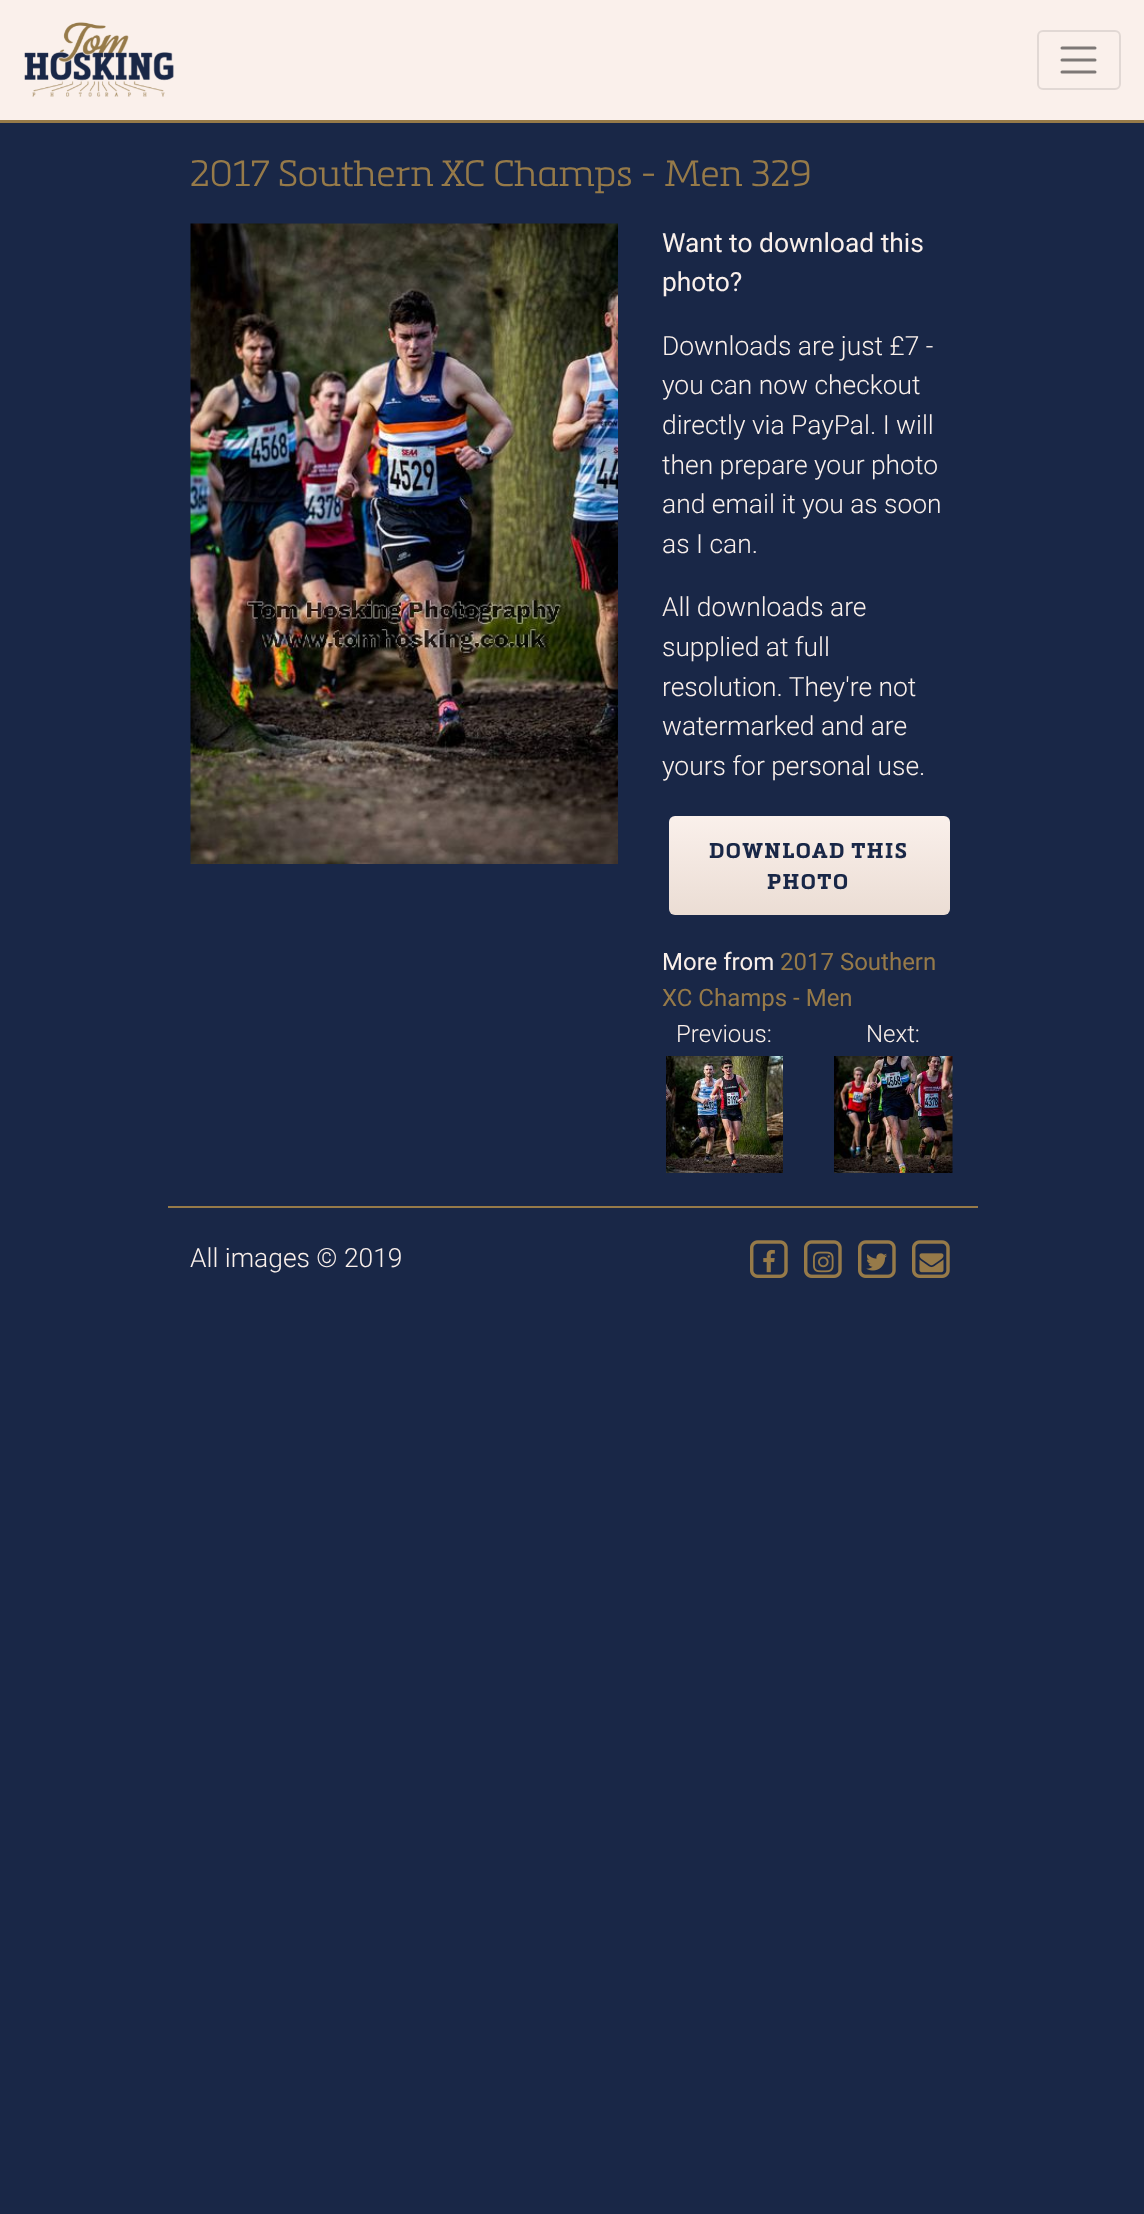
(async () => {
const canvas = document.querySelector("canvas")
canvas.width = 1144
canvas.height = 2214
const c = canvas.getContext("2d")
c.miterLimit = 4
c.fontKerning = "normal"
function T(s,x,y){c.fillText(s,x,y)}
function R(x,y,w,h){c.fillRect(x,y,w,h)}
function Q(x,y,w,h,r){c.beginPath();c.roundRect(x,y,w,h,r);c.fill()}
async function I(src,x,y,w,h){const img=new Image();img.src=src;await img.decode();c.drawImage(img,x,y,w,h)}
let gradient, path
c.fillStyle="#192747"
R(0,0,1144,2214)
c.fillStyle="#faf0eb"
R(0,0,1144,120)
c.fillStyle="#967a49"
R(0,120,1144,3)
await I("1.png",24,22,150,75)
c.beginPath()
c.roundRect(1038,31,82,58,5)
c.strokeStyle="#e1d8d4"
c.lineWidth=2
c.stroke()
path = new Path2D("M1062 48h33m-33 12h33m-33 12h33")
c.strokeStyle="#7d7876"
c.lineWidth=3
c.lineCap="round"
c.stroke(path)
c.font="300 36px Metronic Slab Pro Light"
T("2017 Southern XC Champs - Men 329",190,186)
await I("2.png",190,223,428,641)
c.font="26.4px Roboto"
c.fillStyle="#faf0eb"
T("Want to download this",662,252)
T("photo?",662,291)
c.font="300 26.4px Roboto"
T("Downloads are just £7 -",662,355)
T("you can now checkout",662,394)
T("directly via PayPal. I will",662,434)
T("then prepare your photo",662,474)
T("and email it you as soon",662,513)
T("as I can.",662,553)
T("All downloads are",662,616)
T("supplied at full",662,656)
T("resolution. They're not",662,696)
T("watermarked and are",662,735)
T("yours for personal use.",662,775)
gradient = c.createLinearGradient(809,816,809,915)
gradient.addColorStop(0,"#faf0eb")
gradient.addColorStop(1,"#ebddd4")
c.fillStyle = gradient
Q(669,816,281,99,6)
c.letterSpacing="1.5px"
c.font="bold 21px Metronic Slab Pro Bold"
c.fillStyle="#192747"
T("DOWNLOAD THIS",709,858)
T("PHOTO",767,889)
c.letterSpacing="0px"
c.font="24px Roboto"
c.fillStyle="#faf0eb"
T("More from",662,970)
c.fillStyle="#967a49"
T("2017 Southern",780,970)
T("XC Champs - Men",662,1006)
c.font="300 24px Roboto"
c.fillStyle="#faf0eb"
T("Previous:",676,1042)
await I("3.png",666,1056,117,117)
T("Next:",866,1042)
await I("4.png",834,1056,119,117)
c.fillStyle="#967a49"
R(168,1206,810,2)
c.font="300 26.4px Roboto"
c.fillStyle="#faf0eb"
T("All images © 2019",190,1267)
await I("5.png",750,1240,38,38)
await I("6.png",763,1249,12,24)
await I("5.png",804,1240,38,38)
await I("7.png",813,1251,21,22)
await I("5.png",858,1240,38,38)
await I("8.png",866,1253,21,18)
await I("5.png",912,1240,38,38)
await I("9.png",919,1253,25,20)
})()
